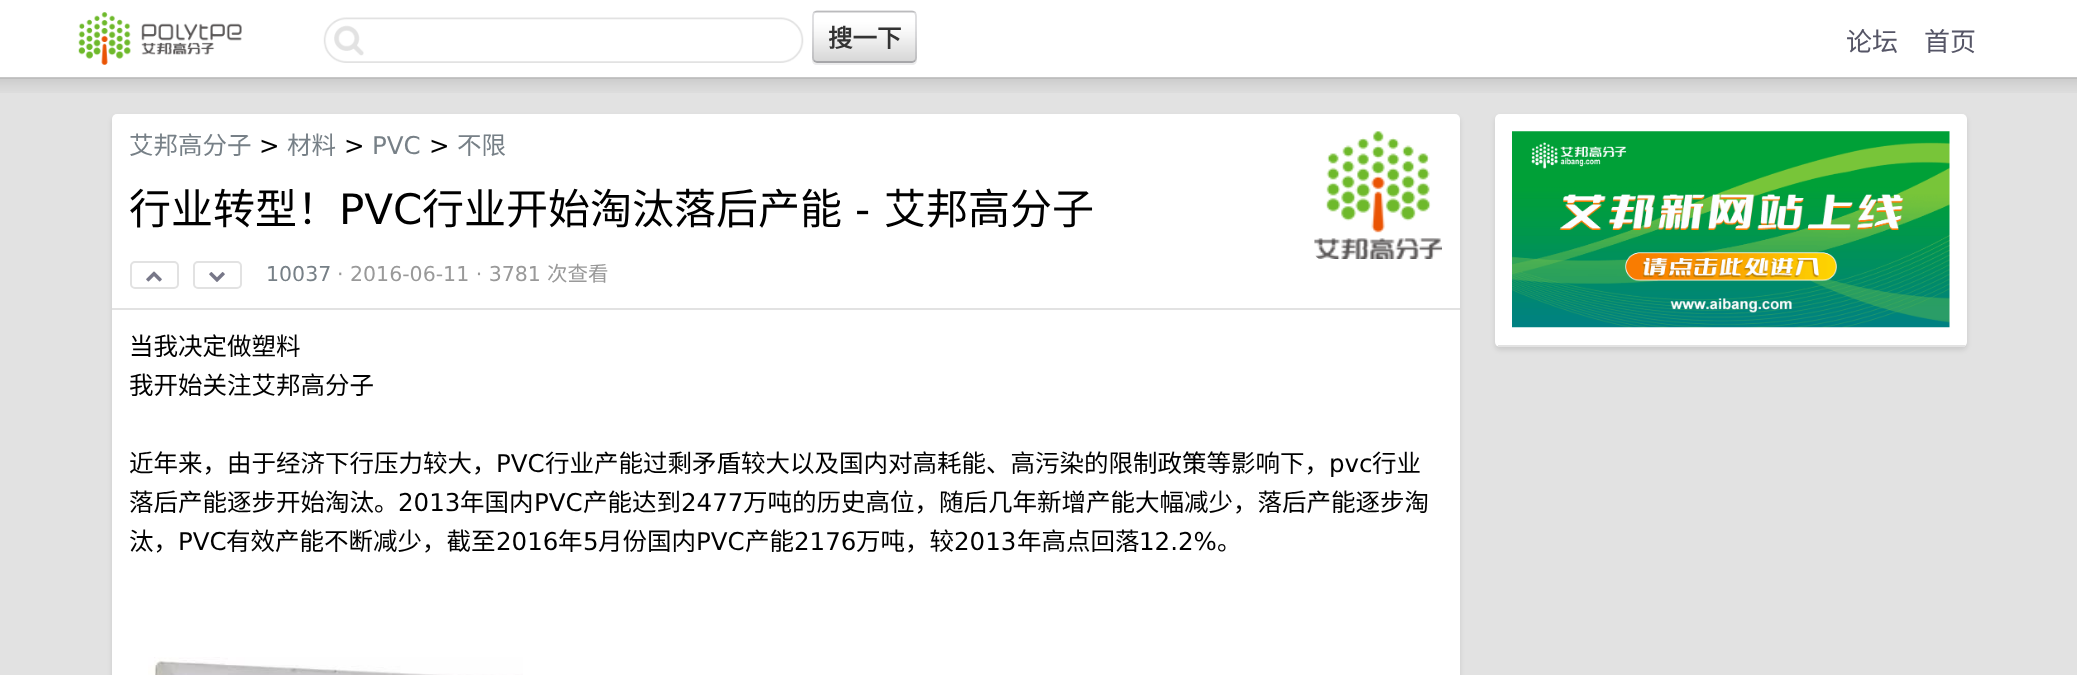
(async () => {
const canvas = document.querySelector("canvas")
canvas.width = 2077
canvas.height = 675
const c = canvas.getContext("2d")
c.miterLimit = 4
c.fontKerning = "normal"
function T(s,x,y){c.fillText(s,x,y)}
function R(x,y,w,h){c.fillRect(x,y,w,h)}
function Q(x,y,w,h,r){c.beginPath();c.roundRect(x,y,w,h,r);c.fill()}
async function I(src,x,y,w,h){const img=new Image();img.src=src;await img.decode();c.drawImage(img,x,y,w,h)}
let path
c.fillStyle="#fff"
R(0,0,2077,675)
c.fillStyle="#c7c7c7"
R(0,77,2077,2)
await I("1.png",78,12,164,53)
await I("2.png",323,17,481,46)
c.fillStyle="#ececed"
path = new Path2D("M812 58v2c0 3 2 5 5 5h95c3 0 5-2 5-5v-2c0 3-2 5-5 5h-95c-3 0-5-2-5-5z")
c.fill(path)
c.fillStyle="#fff"
Q(812,11,105,52,5)
await I("3.png",812,10,105,53)
path = new Path2D("M915 61l-3 1h-95l-3-1")
c.strokeStyle="#50505a59"
c.lineWidth=1.8
c.stroke(path)
path = new Path2D("M814 61c-.5-1-1-2-1-3v-42c0-1.5 .5-2.5 1-3.5c1-.5 2-1 3-1h95c1 0 2 .5 3 1c.5 1 1 2 1 3.5v42c0 1-.5 2-1 3")
c.strokeStyle="#50505a33"
c.stroke(path)
c.font="bold 24.5px Noto Sans CJK SC"
c.fillStyle="#333"
T("搜一下",828,47)
c.font="26px Noto Sans CJK SC"
c.fillStyle="#556"
T("论坛",1846,51)
T("首页",1924,51)
await I("4.png",0,78,2077,1)
c.fillStyle="#e2e2e2"
R(0,79,2077,596)
await I("5.png",0,78,2077,15)
c.fillStyle="#0000001a"
c.filter="blur(2.5px)"
c.beginPath()
c.roundRect(112,117,1348,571,5)
c.fill()
c.filter="none"
c.fillStyle="#fff"
Q(112,114,1348,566,5)
c.fillStyle="#e2e2e2"
R(112,308,1348,2)
c.font="24.5px Noto Sans CJK SC"
c.fillStyle="#778087"
T("艾邦高分子",129,154)
c.font="24.5px DejaVu Sans"
c.fillStyle="#000"
T(">",259,154)
c.font="24.5px Noto Sans CJK SC"
c.fillStyle="#778087"
T("材料",287,154)
c.font="24.5px DejaVu Sans"
c.fillStyle="#000"
T(">",344,154)
c.fillStyle="#778087"
T("PVC",372,154)
c.fillStyle="#000"
T(">",429,154)
c.font="24.5px Noto Sans CJK SC"
c.fillStyle="#778087"
T("不限",457,154)
await I("6.png",1314,131,128,128)
c.font="42px Noto Sans CJK SC"
c.fillStyle="#000"
T("行业转型！",129,224)
c.font="42px DejaVu Sans"
T("PVC",339,224)
c.font="42px Noto Sans CJK SC"
T("行业开始淘汰落后产能",422,224)
c.font="42px DejaVu Sans"
T("-",855,224)
c.font="42px Noto Sans CJK SC"
T("艾邦高分子",884,224)
c.beginPath()
c.roundRect(131,262,47,26,4)
c.strokeStyle="#e2e2e2"
c.lineWidth=2
c.stroke()
await I("7.png",146,271,16,11)
c.beginPath()
c.roundRect(194,262,47,26,4)
c.stroke()
await I("8.png",209,272,16,10)
c.font="20.5px DejaVu Sans"
c.fillStyle="#778087"
T("10037",266,281)
c.fillStyle="#999"
T("· 2016-06-11 · 3781",337,281)
c.font="20.5px Noto Sans CJK SC"
T("次查看",547,281)
c.font="24.5px Noto Sans CJK SC"
c.fillStyle="#000"
T("当我决定做塑料",129,355)
T("我开始关注艾邦高分子",129,394)
T("近年来，由于经济下行压力较大，",129,472)
c.font="24.5px DejaVu Sans"
T("PVC",496,472)
c.font="24.5px Noto Sans CJK SC"
T("行业产能过剩矛盾较大以及国内对高耗能、高污染的限制政策等影响下，",545,472)
c.font="24.5px DejaVu Sans"
T("pvc",1329,472)
c.font="24.5px Noto Sans CJK SC"
T("行业",1372,472)
T("落后产能逐步开始淘汰。",129,511)
c.font="24.5px DejaVu Sans"
T("2013",398,511)
c.font="24.5px Noto Sans CJK SC"
T("年国内",460,511)
c.font="24.5px DejaVu Sans"
T("PVC",534,511)
c.font="24.5px Noto Sans CJK SC"
T("产能达到",583,511)
c.font="24.5px DejaVu Sans"
T("2477",681,511)
c.font="24.5px Noto Sans CJK SC"
T("万吨的历史高位，随后几年新增产能大幅减少，落后产能逐步淘",743,511)
T("汰，",129,550)
c.font="24.5px DejaVu Sans"
T("PVC",178,550)
c.font="24.5px Noto Sans CJK SC"
T("有效产能不断减少，截至",226,550)
c.font="24.5px DejaVu Sans"
T("2016",496,550)
c.font="24.5px Noto Sans CJK SC"
T("年",558,550)
c.font="24.5px DejaVu Sans"
T("5",583,550)
c.font="24.5px Noto Sans CJK SC"
T("月份国内",598,550)
c.font="24.5px DejaVu Sans"
T("PVC",696,550)
c.font="24.5px Noto Sans CJK SC"
T("产能",745,550)
c.font="24.5px DejaVu Sans"
T("2176",794,550)
c.font="24.5px Noto Sans CJK SC"
T("万吨，较",856,550)
c.font="24.5px DejaVu Sans"
T("2013",954,550)
c.font="24.5px Noto Sans CJK SC"
T("年高点回落",1017,550)
c.font="24.5px DejaVu Sans"
T("12.2%",1139,550)
c.font="24.5px Noto Sans CJK SC"
T("。",1217,550)
await I("9.png",148,657,375,18)
c.fillStyle="#0000001a"
c.filter="blur(2.5px)"
c.beginPath()
c.roundRect(1495,117,472,233,5)
c.fill()
c.filter="none"
c.fillStyle="#fff"
Q(1495,114,472,233,5)
c.fillStyle="#e2e2e2"
R(1498,345,467,2)
await I("10.png",1512,131,438,197)
})()
